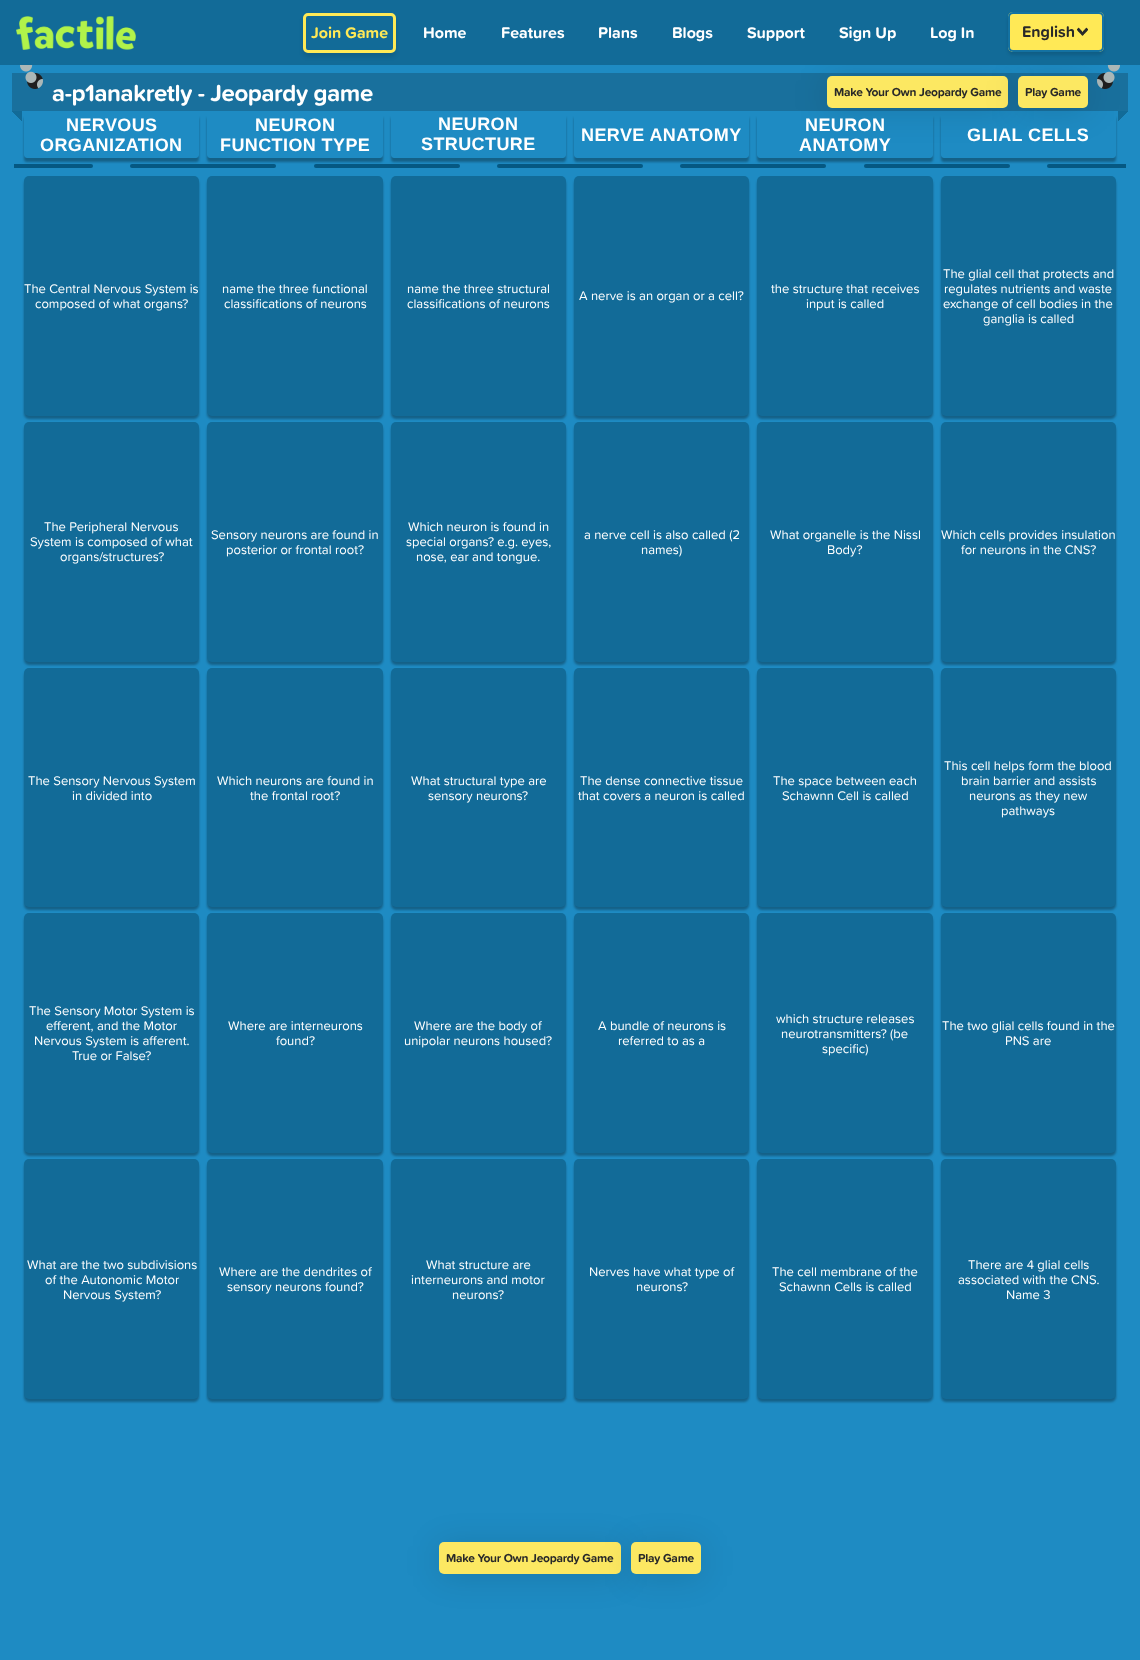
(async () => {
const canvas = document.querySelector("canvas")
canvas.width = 1140
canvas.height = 1660
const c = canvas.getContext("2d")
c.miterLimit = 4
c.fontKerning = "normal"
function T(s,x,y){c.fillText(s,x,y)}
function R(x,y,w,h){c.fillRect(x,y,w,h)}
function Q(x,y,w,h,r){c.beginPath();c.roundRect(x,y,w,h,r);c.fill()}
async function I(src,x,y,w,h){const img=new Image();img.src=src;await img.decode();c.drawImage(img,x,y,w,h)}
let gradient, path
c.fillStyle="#1e8bc3"
R(0,0,1140,1660)
c.fillStyle="#19709d"
R(12,73,1116,38)
c.fillStyle="#0000001f"
c.filter="blur(16.5px)"
c.beginPath()
c.roundRect(827,79,181,32,5)
c.fill()
c.filter="none"
await I("4.png",1097,65,23,24)
c.fillStyle="#fce862"
Q(827,76,181,32,5)
gradient = c.createLinearGradient(1128,123,1116,111)
gradient.addColorStop(.49,"#1e8bc3")
gradient.addColorStop(.5,"#126b98")
c.fillStyle = gradient
R(1118,111,10,10)
c.fillStyle="#0000001f"
c.filter="blur(16.5px)"
c.beginPath()
c.roundRect(1018,79,70,32,5)
c.fill()
c.filter="none"
c.fillStyle="#126b98"
R(0,0,1140,65)
await I("1.png",16,16,120,34)
c.save()
path = new Path2D("M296 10h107v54h-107zm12 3h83c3 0 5 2 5 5v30c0 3-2 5-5 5h-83c-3 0-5-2-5-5v-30c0-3 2-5 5-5z")
c.clip(path,"evenodd")
c.fillStyle="#0000001c"
c.filter="blur(2px)"
c.beginPath()
c.roundRect(303,17,93,40,5)
c.fill()
c.filter="none"
c.restore()
c.beginPath()
c.roundRect(304.5,14.5,90,37,3.5)
c.strokeStyle="#ffe956"
c.lineWidth=3
c.stroke()
c.font="bold 16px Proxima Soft"
c.fillStyle="#ffe956"
T("Join Game",311,38)
c.fillStyle="#fff"
T("Home",423,38)
T("Features",501,38)
T("Plans",598,38)
T("Blogs",672,38)
T("Support",747,38)
T("Sign Up",839,38)
T("Log In",930,38)
c.fillStyle="#0000001f"
c.filter="blur(1.5px)"
c.beginPath()
c.roundRect(1008,15,96,40,5)
c.fill()
c.filter="none"
c.fillStyle="#ffe956"
Q(1008,12,96,40,5)
await I("2.png",1077,27,11,9)
c.beginPath()
c.roundRect(1009,13,94,38,4)
c.strokeStyle="#1472a2"
c.lineWidth=2
c.stroke()
c.fillStyle="#292929"
T("English",1022,37)
await I("3.png",20,65,23,24)
c.letterSpacing="-0.4px"
c.font="bold 24px Proxima Soft"
c.fillStyle="#fff"
T("a-p1anakretly - Jeopardy game",52,101)
c.letterSpacing="-0.25px"
c.font="bold 12px Proxima Soft"
c.fillStyle="#292929"
T("Make Your Own Jeopardy Game",834,96)
c.fillStyle="#fce862"
Q(1018,76,70,32,5)
c.fillStyle="#292929"
T("Play Game",1025,96)
gradient = c.createLinearGradient(12,123,24,111)
gradient.addColorStop(.49,"#1e8bc3")
gradient.addColorStop(.5,"#126b98")
c.fillStyle = gradient
R(12,111,10,10)
c.fillStyle="#055882"
c.beginPath()
c.roundRect(14,164,79,4,[0,2,2,0])
c.fill()
c.save()
path = new Path2D("M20 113h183v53h-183zm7 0h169c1.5 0 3 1.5 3 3v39c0 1.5-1.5 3-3 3h-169c-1.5 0-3-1.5-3-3v-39c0-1.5 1.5-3 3-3z")
c.clip(path,"evenodd")
c.fillStyle="#0000004d"
c.filter="blur(1px)"
c.beginPath()
c.roundRect(24,117,175,45,3)
c.fill()
c.filter="none"
c.restore()
c.letterSpacing="0.4px"
c.font="bold 18px Liberation Sans"
c.fillStyle="#fff"
T("NERVOUS",66,131)
T("ORGANIZATION",40,151)
c.fillStyle="#055882"
c.beginPath()
c.roundRect(130,164,79,4,[2,0,0,2])
c.fill()
c.fillStyle="#0000004d"
c.filter="blur(1px)"
c.beginPath()
c.roundRect(24,179,175,240,5)
c.fill()
c.filter="none"
c.fillStyle="#126b98"
Q(24,176,175,240,5)
c.letterSpacing="0px"
c.font="13px Proxima Soft"
c.fillStyle="#fff"
T("The Central Nervous System is",24,293)
T("composed of what organs?",35,308)
c.fillStyle="#0000004d"
c.filter="blur(1px)"
c.beginPath()
c.roundRect(24,425,175,240,5)
c.fill()
c.filter="none"
c.fillStyle="#126b98"
Q(24,422,175,240,5)
c.fillStyle="#fff"
T("The Peripheral Nervous",44,531)
T("System is composed of what",30,546)
T("organs/structures?",60,561)
c.fillStyle="#0000004d"
c.filter="blur(1px)"
c.beginPath()
c.roundRect(24,671,175,239,5)
c.fill()
c.filter="none"
c.fillStyle="#126b98"
Q(24,668,175,239,5)
c.fillStyle="#fff"
T("The Sensory Nervous System",28,785)
T("in divided into",72,800)
c.fillStyle="#0000004d"
c.filter="blur(1px)"
c.beginPath()
c.roundRect(24,916,175,240,5)
c.fill()
c.filter="none"
c.fillStyle="#126b98"
Q(24,913,175,240,5)
c.fillStyle="#fff"
T("The Sensory Motor System is",29,1015)
T("efferent, and the Motor",46,1030)
T("Nervous System is afferent.",34,1045)
T("True or False?",72,1060)
c.fillStyle="#0000004d"
c.filter="blur(1px)"
c.beginPath()
c.roundRect(24,1162,175,240,5)
c.fill()
c.filter="none"
c.fillStyle="#126b98"
Q(24,1159,175,240,5)
c.fillStyle="#fff"
T("What are the two subdivisions",27,1269)
T("of the Autonomic Motor",45,1284)
T("Nervous System?",63,1299)
c.fillStyle="#055882"
c.beginPath()
c.roundRect(197,164,79,4,[0,2,2,0])
c.fill()
c.save()
path = new Path2D("M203 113h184v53h-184zm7 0h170c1.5 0 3 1.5 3 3v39c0 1.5-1.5 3-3 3h-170c-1.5 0-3-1.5-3-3v-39c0-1.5 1.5-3 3-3z")
c.clip(path,"evenodd")
c.fillStyle="#0000004d"
c.filter="blur(1px)"
c.beginPath()
c.roundRect(207,117,176,45,3)
c.fill()
c.filter="none"
c.restore()
c.letterSpacing="0.4px"
c.font="bold 18px Liberation Sans"
c.fillStyle="#fff"
T("NEURON",255,131)
T("FUNCTION TYPE",220,151)
c.fillStyle="#055882"
c.beginPath()
c.roundRect(314,164,79,4,[2,0,0,2])
c.fill()
c.fillStyle="#0000004d"
c.filter="blur(1px)"
c.beginPath()
c.roundRect(207,179,176,240,5)
c.fill()
c.filter="none"
c.fillStyle="#126b98"
Q(207,176,176,240,5)
c.letterSpacing="0px"
c.font="13px Proxima Soft"
c.fillStyle="#fff"
T("name the three functional",222,293)
T("classifications of neurons",224,308)
c.fillStyle="#0000004d"
c.filter="blur(1px)"
c.beginPath()
c.roundRect(207,425,176,240,5)
c.fill()
c.filter="none"
c.fillStyle="#126b98"
Q(207,422,176,240,5)
c.fillStyle="#fff"
T("Sensory neurons are found in",211,539)
T("posterior or frontal root?",226,554)
c.fillStyle="#0000004d"
c.filter="blur(1px)"
c.beginPath()
c.roundRect(207,671,176,239,5)
c.fill()
c.filter="none"
c.fillStyle="#126b98"
Q(207,668,176,239,5)
c.fillStyle="#fff"
T("Which neurons are found in",217,785)
T("the frontal root?",250,800)
c.fillStyle="#0000004d"
c.filter="blur(1px)"
c.beginPath()
c.roundRect(207,916,176,240,5)
c.fill()
c.filter="none"
c.fillStyle="#126b98"
Q(207,913,176,240,5)
c.fillStyle="#fff"
T("Where are interneurons",228,1030)
T("found?",276,1045)
c.fillStyle="#0000004d"
c.filter="blur(1px)"
c.beginPath()
c.roundRect(207,1162,176,240,5)
c.fill()
c.filter="none"
c.fillStyle="#126b98"
Q(207,1159,176,240,5)
c.fillStyle="#fff"
T("Where are the dendrites of",219,1276)
T("sensory neurons found?",227,1291)
c.fillStyle="#055882"
c.beginPath()
c.roundRect(381,164,79,4,[0,2,2,0])
c.fill()
c.save()
path = new Path2D("M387 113h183v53h-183zm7 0h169c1.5 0 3 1.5 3 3v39c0 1.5-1.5 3-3 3h-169c-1.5 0-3-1.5-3-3v-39c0-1.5 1.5-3 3-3z")
c.clip(path,"evenodd")
c.fillStyle="#0000004d"
c.filter="blur(1px)"
c.beginPath()
c.roundRect(391,117,175,45,3)
c.fill()
c.filter="none"
c.restore()
c.letterSpacing="0.4px"
c.font="bold 18px Liberation Sans"
c.fillStyle="#fff"
T("NEURON",438,130)
T("STRUCTURE",421,150)
c.fillStyle="#055882"
c.beginPath()
c.roundRect(497,164,79,4,[2,0,0,2])
c.fill()
c.fillStyle="#0000004d"
c.filter="blur(1px)"
c.beginPath()
c.roundRect(391,179,175,240,5)
c.fill()
c.filter="none"
c.fillStyle="#126b98"
Q(391,176,175,240,5)
c.letterSpacing="0px"
c.font="13px Proxima Soft"
c.fillStyle="#fff"
T("name the three structural",407,293)
T("classifications of neurons",407,308)
c.fillStyle="#0000004d"
c.filter="blur(1px)"
c.beginPath()
c.roundRect(391,425,175,240,5)
c.fill()
c.filter="none"
c.fillStyle="#126b98"
Q(391,422,175,240,5)
c.fillStyle="#fff"
T("Which neuron is found in",408,531)
T("special organs? e.g. eyes,",406,546)
T("nose, ear and tongue.",416,561)
c.fillStyle="#0000004d"
c.filter="blur(1px)"
c.beginPath()
c.roundRect(391,671,175,239,5)
c.fill()
c.filter="none"
c.fillStyle="#126b98"
Q(391,668,175,239,5)
c.fillStyle="#fff"
T("What structural type are",411,785)
T("sensory neurons?",428,800)
c.fillStyle="#0000004d"
c.filter="blur(1px)"
c.beginPath()
c.roundRect(391,916,175,240,5)
c.fill()
c.filter="none"
c.fillStyle="#126b98"
Q(391,913,175,240,5)
c.fillStyle="#fff"
T("Where are the body of",414,1030)
T("unipolar neurons housed?",404,1045)
c.fillStyle="#0000004d"
c.filter="blur(1px)"
c.beginPath()
c.roundRect(391,1162,175,240,5)
c.fill()
c.filter="none"
c.fillStyle="#126b98"
Q(391,1159,175,240,5)
c.fillStyle="#fff"
T("What structure are",426,1269)
T("interneurons and motor",411,1284)
T("neurons?",452,1299)
c.fillStyle="#055882"
c.beginPath()
c.roundRect(564,164,79,4,[0,2,2,0])
c.fill()
c.save()
path = new Path2D("M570 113h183v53h-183zm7 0h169c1.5 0 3 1.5 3 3v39c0 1.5-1.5 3-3 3h-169c-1.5 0-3-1.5-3-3v-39c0-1.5 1.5-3 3-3z")
c.clip(path,"evenodd")
c.fillStyle="#0000004d"
c.filter="blur(1px)"
c.beginPath()
c.roundRect(574,117,175,45,3)
c.fill()
c.filter="none"
c.restore()
c.letterSpacing="0.4px"
c.font="bold 18px Liberation Sans"
c.fillStyle="#fff"
T("NERVE ANATOMY",581,141)
c.fillStyle="#055882"
c.beginPath()
c.roundRect(680,164,79,4,[2,0,0,2])
c.fill()
c.fillStyle="#0000004d"
c.filter="blur(1px)"
c.beginPath()
c.roundRect(574,179,175,240,5)
c.fill()
c.filter="none"
c.fillStyle="#126b98"
Q(574,176,175,240,5)
c.letterSpacing="0px"
c.font="13px Proxima Soft"
c.fillStyle="#fff"
T("A nerve is an organ or a cell?",579,300)
c.fillStyle="#0000004d"
c.filter="blur(1px)"
c.beginPath()
c.roundRect(574,425,175,240,5)
c.fill()
c.filter="none"
c.fillStyle="#126b98"
Q(574,422,175,240,5)
c.fillStyle="#fff"
T("a nerve cell is also called (2",584,539)
T("names)",641,554)
c.fillStyle="#0000004d"
c.filter="blur(1px)"
c.beginPath()
c.roundRect(574,671,175,239,5)
c.fill()
c.filter="none"
c.fillStyle="#126b98"
Q(574,668,175,239,5)
c.fillStyle="#fff"
T("The dense connective tissue",580,785)
T("that covers a neuron is called",578,800)
c.fillStyle="#0000004d"
c.filter="blur(1px)"
c.beginPath()
c.roundRect(574,916,175,240,5)
c.fill()
c.filter="none"
c.fillStyle="#126b98"
Q(574,913,175,240,5)
c.fillStyle="#fff"
T("A bundle of neurons is",598,1030)
T("referred to as a",618,1045)
c.fillStyle="#0000004d"
c.filter="blur(1px)"
c.beginPath()
c.roundRect(574,1162,175,240,5)
c.fill()
c.filter="none"
c.fillStyle="#126b98"
Q(574,1159,175,240,5)
c.fillStyle="#fff"
T("Nerves have what type of",589,1276)
T("neurons?",636,1291)
c.fillStyle="#055882"
c.beginPath()
c.roundRect(747,164,79,4,[0,2,2,0])
c.fill()
c.save()
path = new Path2D("M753 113h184v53h-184zm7 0h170c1.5 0 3 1.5 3 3v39c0 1.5-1.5 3-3 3h-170c-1.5 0-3-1.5-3-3v-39c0-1.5 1.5-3 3-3z")
c.clip(path,"evenodd")
c.fillStyle="#0000004d"
c.filter="blur(1px)"
c.beginPath()
c.roundRect(757,117,176,45,3)
c.fill()
c.filter="none"
c.restore()
c.letterSpacing="0.4px"
c.font="bold 18px Liberation Sans"
c.fillStyle="#fff"
T("NEURON",805,131)
T("ANATOMY",799,151)
c.fillStyle="#055882"
c.beginPath()
c.roundRect(864,164,79,4,[2,0,0,2])
c.fill()
c.fillStyle="#0000004d"
c.filter="blur(1px)"
c.beginPath()
c.roundRect(757,179,176,240,5)
c.fill()
c.filter="none"
c.fillStyle="#126b98"
Q(757,176,176,240,5)
c.letterSpacing="0px"
c.font="13px Proxima Soft"
c.fillStyle="#fff"
T("the structure that receives",771,293)
T("input is called",806,308)
c.fillStyle="#0000004d"
c.filter="blur(1px)"
c.beginPath()
c.roundRect(757,425,176,240,5)
c.fill()
c.filter="none"
c.fillStyle="#126b98"
Q(757,422,176,240,5)
c.fillStyle="#fff"
T("What organelle is the Nissl",770,539)
T("Body?",827,554)
c.fillStyle="#0000004d"
c.filter="blur(1px)"
c.beginPath()
c.roundRect(757,671,176,239,5)
c.fill()
c.filter="none"
c.fillStyle="#126b98"
Q(757,668,176,239,5)
c.fillStyle="#fff"
T("The space between each",773,785)
T("Schawnn Cell is called",782,800)
c.fillStyle="#0000004d"
c.filter="blur(1px)"
c.beginPath()
c.roundRect(757,916,176,240,5)
c.fill()
c.filter="none"
c.fillStyle="#126b98"
Q(757,913,176,240,5)
c.fillStyle="#fff"
T("which structure releases",776,1023)
T("neurotransmitters? (be",781,1038)
T("specific)",822,1053)
c.fillStyle="#0000004d"
c.filter="blur(1px)"
c.beginPath()
c.roundRect(757,1162,176,240,5)
c.fill()
c.filter="none"
c.fillStyle="#126b98"
Q(757,1159,176,240,5)
c.fillStyle="#fff"
T("The cell membrane of the",772,1276)
T("Schawnn Cells is called",779,1291)
c.fillStyle="#055882"
c.beginPath()
c.roundRect(931,164,79,4,[0,2,2,0])
c.fill()
c.save()
path = new Path2D("M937 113h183v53h-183zm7 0h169c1.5 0 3 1.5 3 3v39c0 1.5-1.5 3-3 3h-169c-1.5 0-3-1.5-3-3v-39c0-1.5 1.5-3 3-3z")
c.clip(path,"evenodd")
c.fillStyle="#0000004d"
c.filter="blur(1px)"
c.beginPath()
c.roundRect(941,117,175,45,3)
c.fill()
c.filter="none"
c.restore()
c.letterSpacing="0.4px"
c.font="bold 18px Liberation Sans"
c.fillStyle="#fff"
T("GLIAL CELLS",967,141)
c.fillStyle="#055882"
c.beginPath()
c.roundRect(1047,164,79,4,[2,0,0,2])
c.fill()
c.fillStyle="#0000004d"
c.filter="blur(1px)"
c.beginPath()
c.roundRect(941,179,175,240,5)
c.fill()
c.filter="none"
c.fillStyle="#126b98"
Q(941,176,175,240,5)
c.letterSpacing="0px"
c.font="13px Proxima Soft"
c.fillStyle="#fff"
T("The glial cell that protects and",943,278)
T("regulates nutrients and waste",944,293)
T("exchange of cell bodies in the",943,308)
T("ganglia is called",983,323)
c.fillStyle="#0000004d"
c.filter="blur(1px)"
c.beginPath()
c.roundRect(941,425,175,240,5)
c.fill()
c.filter="none"
c.fillStyle="#126b98"
Q(941,422,175,240,5)
c.fillStyle="#fff"
T("Which cells provides insulation",941,539)
T("for neurons in the CNS?",961,554)
c.fillStyle="#0000004d"
c.filter="blur(1px)"
c.beginPath()
c.roundRect(941,671,175,239,5)
c.fill()
c.filter="none"
c.fillStyle="#126b98"
Q(941,668,175,239,5)
c.fillStyle="#fff"
T("This cell helps form the blood",944,770)
T("brain barrier and assists",961,785)
T("neurons as they new",969,800)
T("pathways",1001,815)
c.fillStyle="#0000004d"
c.filter="blur(1px)"
c.beginPath()
c.roundRect(941,916,175,240,5)
c.fill()
c.filter="none"
c.fillStyle="#126b98"
Q(941,913,175,240,5)
c.fillStyle="#fff"
T("The two glial cells found in the",942,1030)
T("PNS are",1005,1045)
c.fillStyle="#0000004d"
c.filter="blur(1px)"
c.beginPath()
c.roundRect(941,1162,175,240,5)
c.fill()
c.filter="none"
c.fillStyle="#126b98"
Q(941,1159,175,240,5)
c.fillStyle="#fff"
T("There are 4 glial cells",968,1269)
T("associated with the CNS.",958,1284)
T("Name 3",1006,1299)
c.fillStyle="#0000001f"
c.filter="blur(16.5px)"
c.beginPath()
c.roundRect(439,1545,182,32,5)
c.fill()
c.filter="none"
c.fillStyle="#fce862"
Q(439,1542,182,32,5)
c.letterSpacing="-0.25px"
c.font="bold 12px Proxima Soft"
c.fillStyle="#292929"
T("Make Your Own Jeopardy Game",446,1562)
c.fillStyle="#0000001f"
c.filter="blur(16.5px)"
c.beginPath()
c.roundRect(631,1545,70,32,5)
c.fill()
c.filter="none"
c.fillStyle="#fce862"
Q(631,1542,70,32,5)
c.fillStyle="#292929"
T("Play Game",638,1562)
})()
